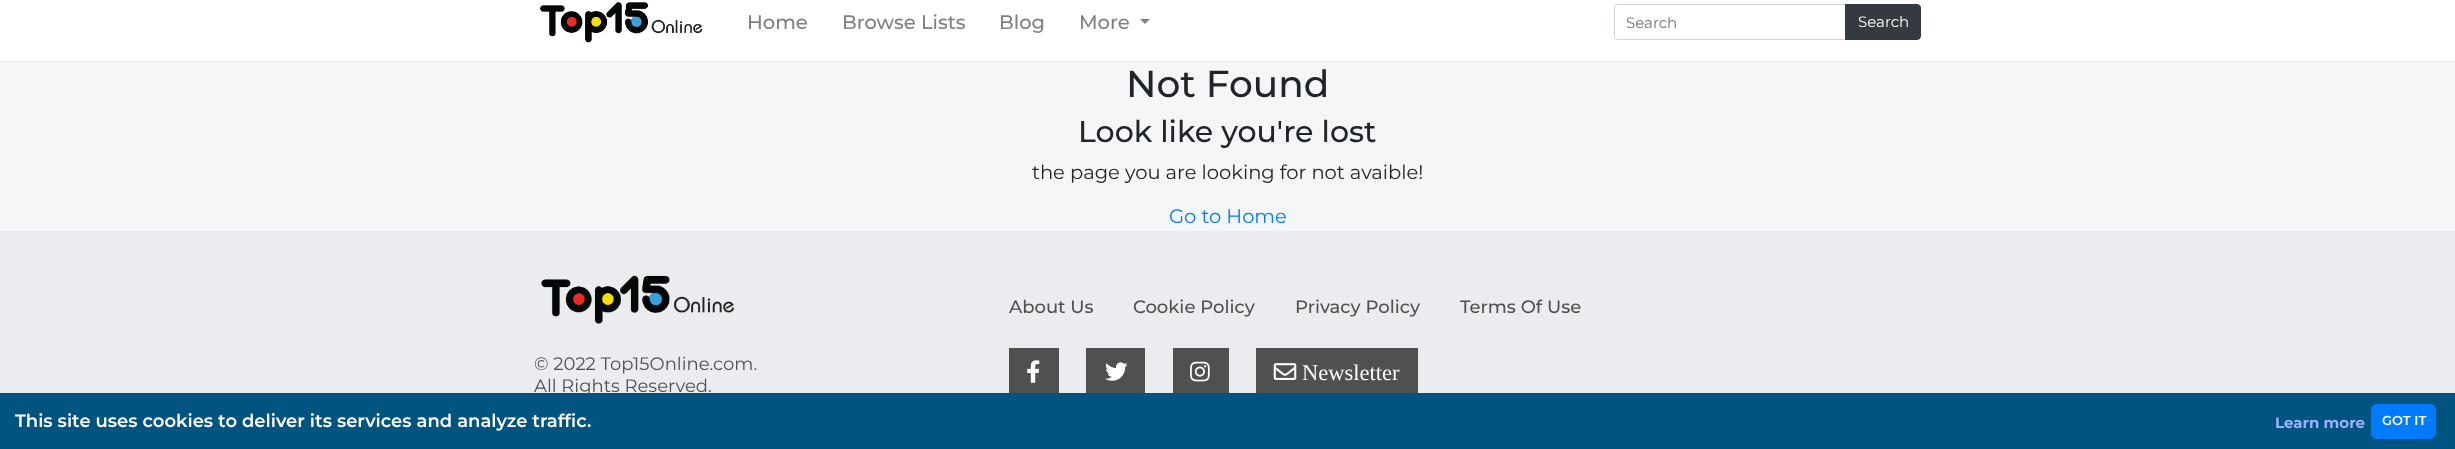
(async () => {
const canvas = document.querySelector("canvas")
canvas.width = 2455
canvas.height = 449
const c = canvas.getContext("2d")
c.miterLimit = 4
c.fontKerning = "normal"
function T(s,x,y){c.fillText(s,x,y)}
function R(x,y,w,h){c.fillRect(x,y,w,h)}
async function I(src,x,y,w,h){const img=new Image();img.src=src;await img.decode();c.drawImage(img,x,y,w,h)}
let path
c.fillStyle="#f4f6f8"
R(0,0,2455,449)
c.fillStyle="#eaeaea"
R(0,61,2455,1)
c.fillStyle="#fff"
R(0,0,2455,61)
await I("1.png",540,2,163,41)
c.font="500 19.5px Montserrat"
c.fillStyle="#808080"
T("Home",747,29)
T("Browse Lists",842,29)
T("Blog",999,29)
T("More",1079,29)
path = new Path2D("M1140 19h10l-5 5z")
c.fill(path)
c.beginPath()
c.roundRect(1614.5,4.5,231,35,[3.5,0,0,3.5])
c.strokeStyle="#ced4da"
c.stroke()
c.font="15px Montserrat"
c.fillStyle="#6c757d"
T("Search",1626,28)
c.fillStyle="#343a40"
c.beginPath()
c.roundRect(1845.5,4.5,75,35,[0,3.5,3.5,0])
c.fill()
c.strokeStyle="#343a40"
c.stroke()
c.fillStyle="#fff"
T("Search",1858,27)
c.font="500 37.5px Montserrat"
c.fillStyle="#212529"
T("Not Found",1126,97)
c.font="500 30px Montserrat"
T("Look like you're lost",1078,142)
c.font="19.5px Montserrat"
T("the page you are looking for not avaible!",1032,179)
c.fillStyle="#007bff"
T("Go to Home",1169,223)
c.fillStyle="#eaecef"
R(0,231,2455,162)
await I("2.png",541,275,194,49)
c.font="18px Montserrat"
c.fillStyle="#505050"
T("© 2022 Top15Online.com.",534,370)
T("All Rights Reserved.",534,392)
c.font="500 18px Montserrat"
T("About Us",1009,313)
T("Cookie Policy",1133,313)
T("Privacy Policy",1295,313)
T("Terms Of Use",1460,313)
R(1009,348,50,45)
await I("3.png",1027,360,13,23)
R(1086,348,59,45)
await I("4.png",1105,362,23,19)
R(1173,348,56,45)
await I("5.png",1190,361,20,21)
R(1256,348,162,45)
await I("6.png",1273,363,24,17)
c.font="22.5px Liberation Serif"
c.fillStyle="#fff"
T("Newsletter",1302,380)
c.fillStyle="#00547f"
R(0,393,2455,56)
c.font="600 18px Montserrat"
c.fillStyle="#fff"
T("This site uses cookies to deliver its services and analyze traffic.",15,427)
c.font="bold 15px Montserrat"
c.fillStyle="#9ab3ff"
T("Learn more",2275,428)
c.fillStyle="#007bff"
c.beginPath()
c.roundRect(2371.5,404.5,64,34,5.5)
c.fill()
c.strokeStyle="#007bff"
c.stroke()
c.font="600 13px Montserrat"
c.fillStyle="#fff"
T("GOT IT",2382,425)
})()
